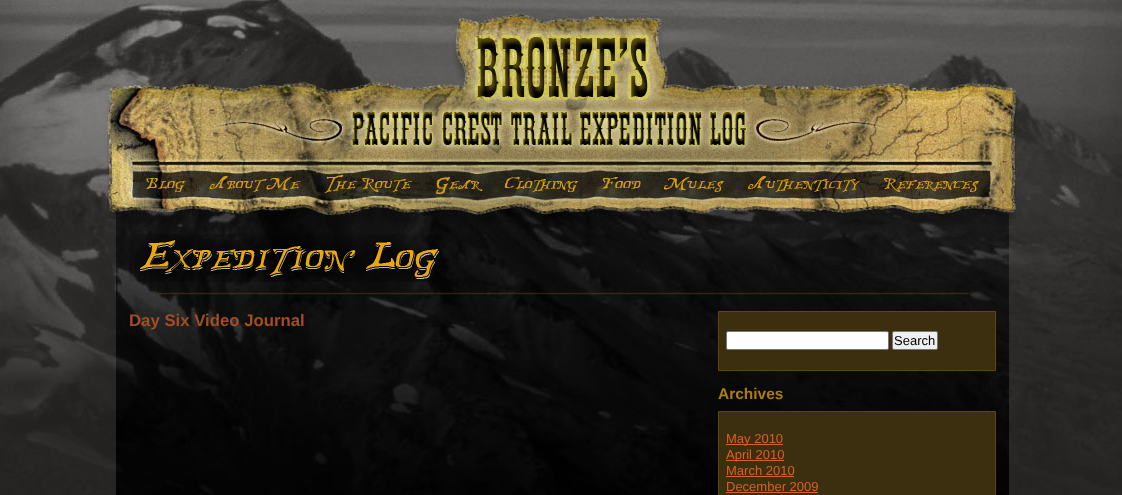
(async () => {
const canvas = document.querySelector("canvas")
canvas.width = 1122
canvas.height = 495
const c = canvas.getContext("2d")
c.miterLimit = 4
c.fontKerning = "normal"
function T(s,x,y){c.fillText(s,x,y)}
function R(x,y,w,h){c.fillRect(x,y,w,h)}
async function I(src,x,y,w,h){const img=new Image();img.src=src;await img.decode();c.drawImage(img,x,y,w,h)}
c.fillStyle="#fff"
R(0,0,1122,495)
await I("1.png",0,0,1122,495)
await I("2.png",107,0,909,219)
await I("3.png",116,219,893,276)
await I("4.png",129,234,311,48)
c.font="bold 16.75px Liberation Sans"
c.fillStyle="#a24d22"
T("Day Six Video Journal",129,326)
c.fillStyle="#3c2f10"
c.beginPath()
c.rect(718.5,311.5,277,59)
c.fill()
c.strokeStyle="#5e460d"
c.stroke()
c.fillStyle="#fff"
c.beginPath()
c.roundRect(726.5,331.5,162,18,1.5)
c.fill()
c.strokeStyle="#767676"
c.stroke()
c.fillStyle="#efefef"
c.beginPath()
c.roundRect(892.5,331.5,45,18,1.5)
c.fill()
c.stroke()
c.font="13px Liberation Sans"
c.fillStyle="#000"
T("Search",894,345)
c.font="bold 15.5px Liberation Sans"
c.fillStyle="#ae7e0b"
T("Archives",718,399)
c.fillStyle="#3c2f10"
c.beginPath()
c.rect(718.5,411.5,277,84)
c.fill()
c.strokeStyle="#5e460d"
c.stroke()
c.fillStyle="#db6021"
R(726,444,57,1)
c.font="13px Liberation Sans"
T("May 2010",726,443)
R(726,460,58,1)
T("April 2010",726,459)
T("March 2010",726,475)
R(726,476,68,1)
T("December 2009",726,491)
R(726,492,92,1)
})()
